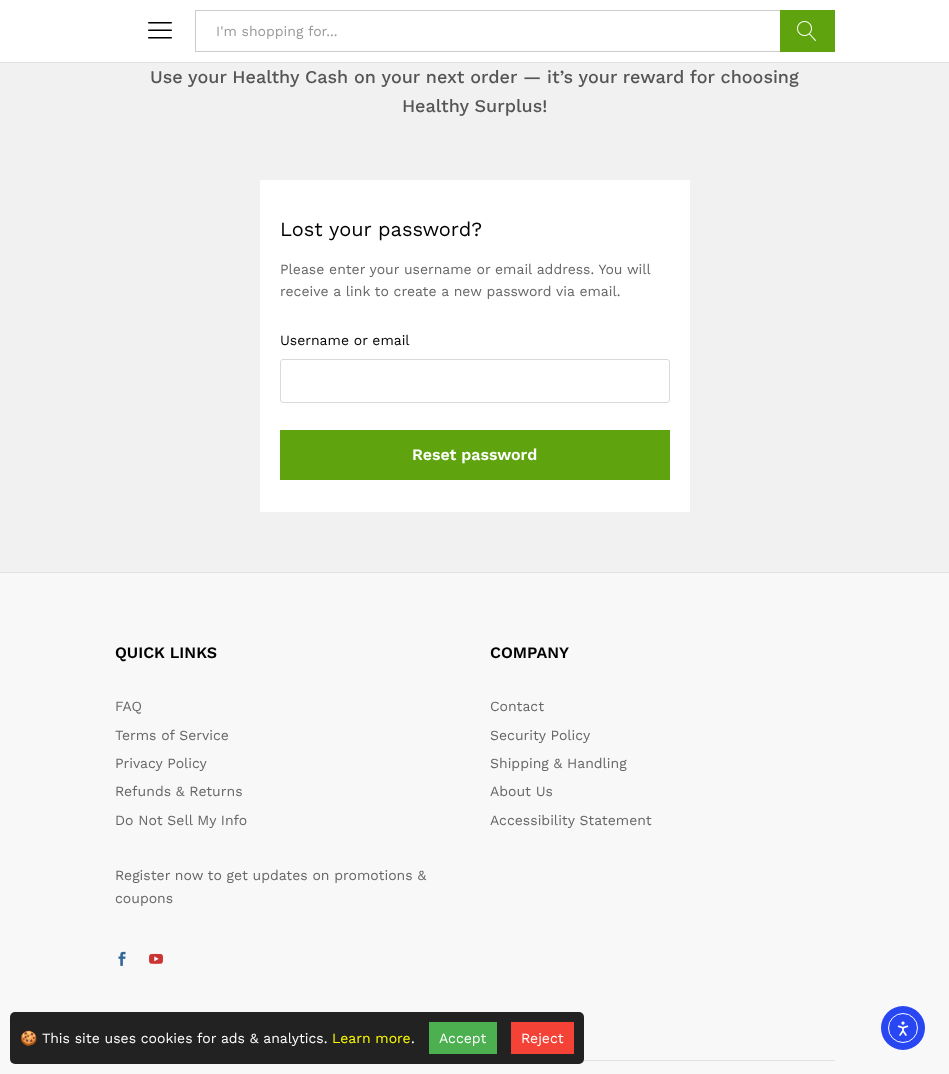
(async () => {
const canvas = document.querySelector("canvas")
canvas.width = 949
canvas.height = 1074
const c = canvas.getContext("2d")
c.miterLimit = 4
c.fontKerning = "normal"
function T(s,x,y){c.fillText(s,x,y)}
function R(x,y,w,h){c.fillRect(x,y,w,h)}
function Q(x,y,w,h,r){c.beginPath();c.roundRect(x,y,w,h,r);c.fill()}
async function I(src,x,y,w,h){const img=new Image();img.src=src;await img.decode();c.drawImage(img,x,y,w,h)}
c.fillStyle="#f1f1f1"
R(0,0,949,1074)
c.fillStyle="#fff"
R(0,0,949,62)
c.fillStyle="#e1e1e1"
R(0,62,949,1)
await I("1.png",148,22,24,17)
c.fillStyle="#ccc"
R(195,10,585,1)
R(195,51,585,1)
R(195,10,1,42)
c.font="14px Work Sans"
c.fillStyle="#999"
T("I'm shopping for...",216,36)
c.fillStyle="#5fa30f"
R(780,10,55,42)
await I("2.png",797,21,19,20)
c.font="500 18px Work Sans"
c.fillStyle="#555"
T("Use your Healthy Cash on your next order — it’s your reward for choosing",150,83)
T("Healthy Surplus!",402,112)
c.fillStyle="#fff"
R(260,180,430,332)
c.font="20px Work Sans"
c.fillStyle="#000"
T("Lost your password?",280,236)
c.font="14px Work Sans"
c.fillStyle="#666"
T("Please enter your username or email address. You will",280,274)
T("receive a link to create a new password via email.",280,296)
c.fillStyle="#000"
T("Username or email",280,345)
c.beginPath()
c.roundRect(280.5,359.5,389,43,2.5)
c.strokeStyle="#d9d9d9"
c.stroke()
c.fillStyle="#5fa30f"
R(280,430,390,50)
c.font="600 16px Work Sans"
c.fillStyle="#fff"
T("Reset password",412,460)
c.fillStyle="#e1e1e1"
R(0,572,949,1)
c.fillStyle="#f8f8f8"
R(0,573,949,501)
c.fillStyle="#000"
T("QUICK LINKS",115,658)
c.font="14px Work Sans"
c.fillStyle="#666"
T("FAQ",115,711)
T("Terms of Service",115,740)
T("Privacy Policy",115,768)
T("Refunds & Returns",115,796)
T("Do Not Sell My Info",115,825)
c.font="600 16px Work Sans"
c.fillStyle="#000"
T("COMPANY",490,658)
c.font="14px Work Sans"
c.fillStyle="#666"
T("Contact",490,711)
T("Security Policy",490,740)
T("Shipping & Handling",490,768)
T("About Us",490,796)
T("Accessibility Statement",490,825)
T("Register now to get updates on promotions &",115,880)
T("coupons",115,903)
await I("3.png",118,951,8,15)
await I("4.png",149,953,14,11)
c.fillStyle="#e1e1e1"
R(583,1060,252,1)
c.fillStyle="#222"
Q(10,1012,574,52,5)
c.font="14px Noto Color Emoji"
c.fillStyle="#fff"
T("🍪",20,1043)
c.font="14px Work Sans"
T("This site uses cookies for ads & analytics.",42,1043)
c.fillStyle="#ff0"
T("Learn more",332,1043)
c.fillStyle="#fff"
T(".",411,1043)
c.fillStyle="#4caf50"
R(429,1022,68,32)
c.fillStyle="#fff"
T("Accept",439,1043)
c.fillStyle="#f44336"
R(511,1022,63,32)
c.fillStyle="#fff"
T("Reject",521,1043)
c.fillStyle="#2847f3"
c.beginPath()
c.arc(903,1028,22,0,7)
c.fill()
c.beginPath()
c.arc(903,1028,14.5,0,7)
c.strokeStyle="#fff"
c.stroke()
await I("5.png",897,1021,12,15)
})()
